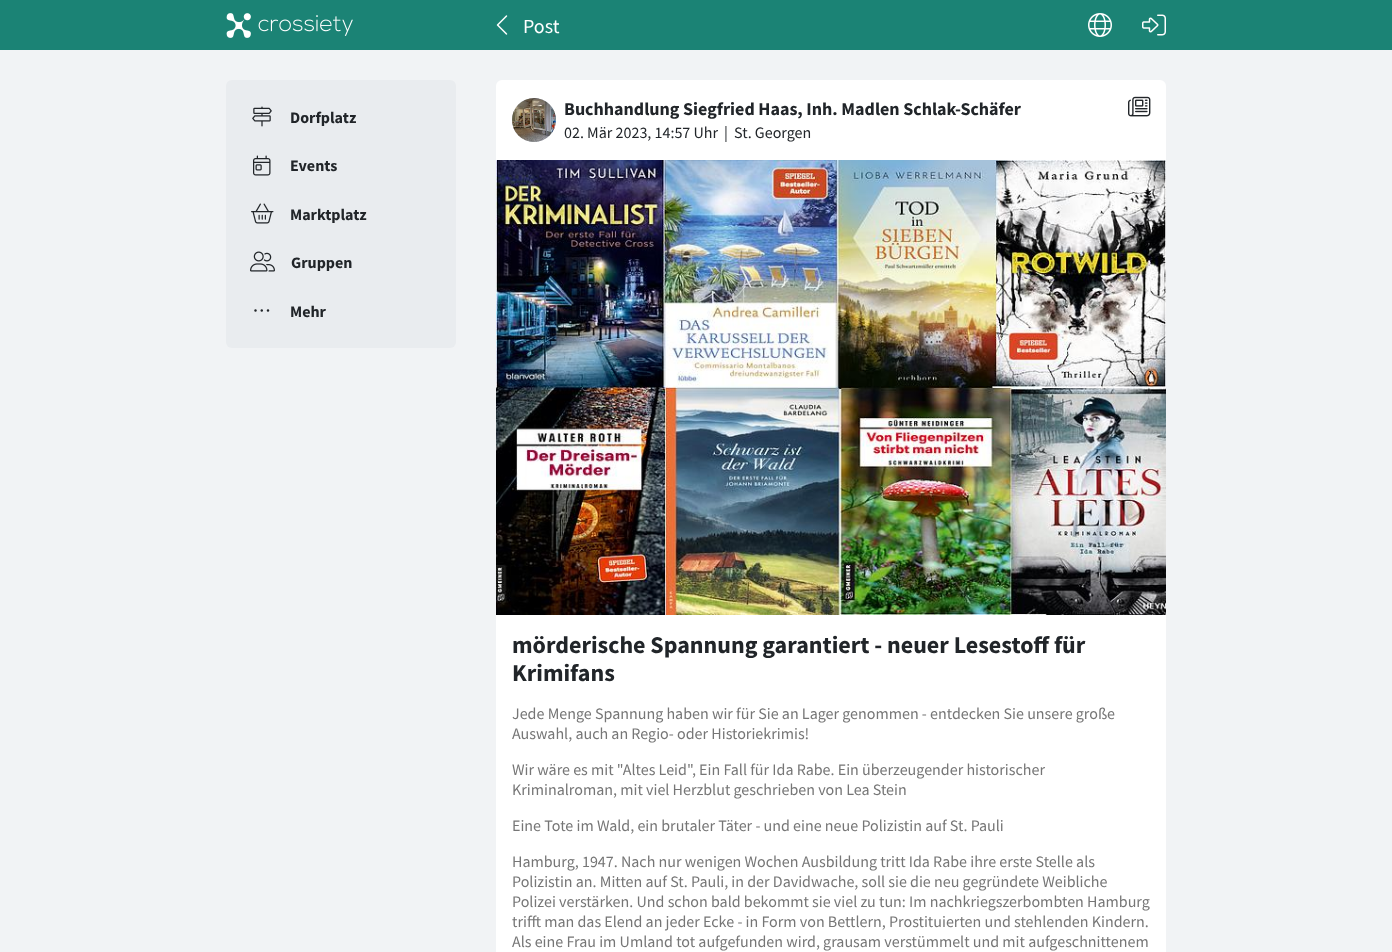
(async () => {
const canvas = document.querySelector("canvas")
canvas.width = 1392
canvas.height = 952
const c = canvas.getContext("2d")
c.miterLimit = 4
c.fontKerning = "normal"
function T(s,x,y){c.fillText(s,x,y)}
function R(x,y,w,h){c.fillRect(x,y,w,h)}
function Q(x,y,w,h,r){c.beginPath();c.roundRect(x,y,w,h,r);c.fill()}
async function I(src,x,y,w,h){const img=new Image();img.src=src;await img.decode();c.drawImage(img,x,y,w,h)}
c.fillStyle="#f1f3f5"
R(0,0,1392,952)
c.fillStyle="#1b8375"
R(0,0,1392,50)
await I("1.png",226,13,127,25)
await I("2.png",496,15,12,20)
c.font="20px Source Sans Pro"
c.fillStyle="#fff"
T("Post",523,33)
await I("3.png",1088,13,24,24)
await I("4.png",1142,14,24,22)
c.fillStyle="#e9ecef"
Q(226,80,230,268,6)
await I("5.png",252,106,20,21)
c.font="bold 16px Source Sans Pro"
c.fillStyle="#212529"
T("Dorfplatz",290,123)
await I("6.png",253,155,18,21)
T("Events",290,171)
await I("7.png",251,203,23,21)
T("Marktplatz",290,220)
await I("8.png",250,251,25,21)
T("Gruppen",291,268)
await I("9.png",254,309,16,3)
T("Mehr",290,317)
c.fillStyle="#fff"
Q(496,80,670,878,6)
c.fillStyle="#adb5bd"
c.beginPath()
c.arc(534,120,22,0,7)
c.fill()
await I("10.png",512,98,44,44)
c.font="bold 18px Source Sans Pro"
c.fillStyle="#212529"
T("Buchhandlung Siegfried Haas, Inh. Madlen Schlak-Schäfer",564,115)
c.font="16px Source Sans Pro"
T("02. Mär 2023, 14:57 Uhr",564,138)
T("|",724,138)
T("St. Georgen",734,138)
await I("11.png",1128,96,23,21)
await I("12.png",496,160,670,455)
c.font="bold 24px Source Sans Pro"
T("mörderische Spannung garantiert - neuer Lesestoff für",512,653)
T("Krimifans",512,681)
c.font="16px Source Sans Pro"
c.fillStyle="#767676"
T("Jede Menge Spannung haben wir für Sie an Lager genommen - entdecken Sie unsere große",512,719)
T("Auswahl, auch an Regio- oder Historiekrimis!",512,739)
T("Wir wäre es mit \"Altes Leid\", Ein Fall für Ida Rabe. Ein überzeugender historischer",512,775)
T("Kriminalroman, mit viel Herzblut geschrieben von Lea Stein",512,795)
T("Eine Tote im Wald, ein brutaler Täter - und eine neue Polizistin auf St. Pauli",512,831)
T("Hamburg, 1947. Nach nur wenigen Wochen Ausbildung tritt Ida Rabe ihre erste Stelle als",512,867)
T("Polizistin an. Mitten auf St. Pauli, in der Davidwache, soll sie die neu gegründete Weibliche",512,887)
T("Polizei verstärken. Und schon bald bekommt sie viel zu tun: Im nachkriegszerbombten Hamburg",512,907)
T("trifft man das Elend an jeder Ecke - in Form von Bettlern, Prostituierten und stehlenden Kindern.",512,927)
T("Als eine Frau im Umland tot aufgefunden wird, grausam verstümmelt und mit aufgeschnittenem",512,947)
})()
